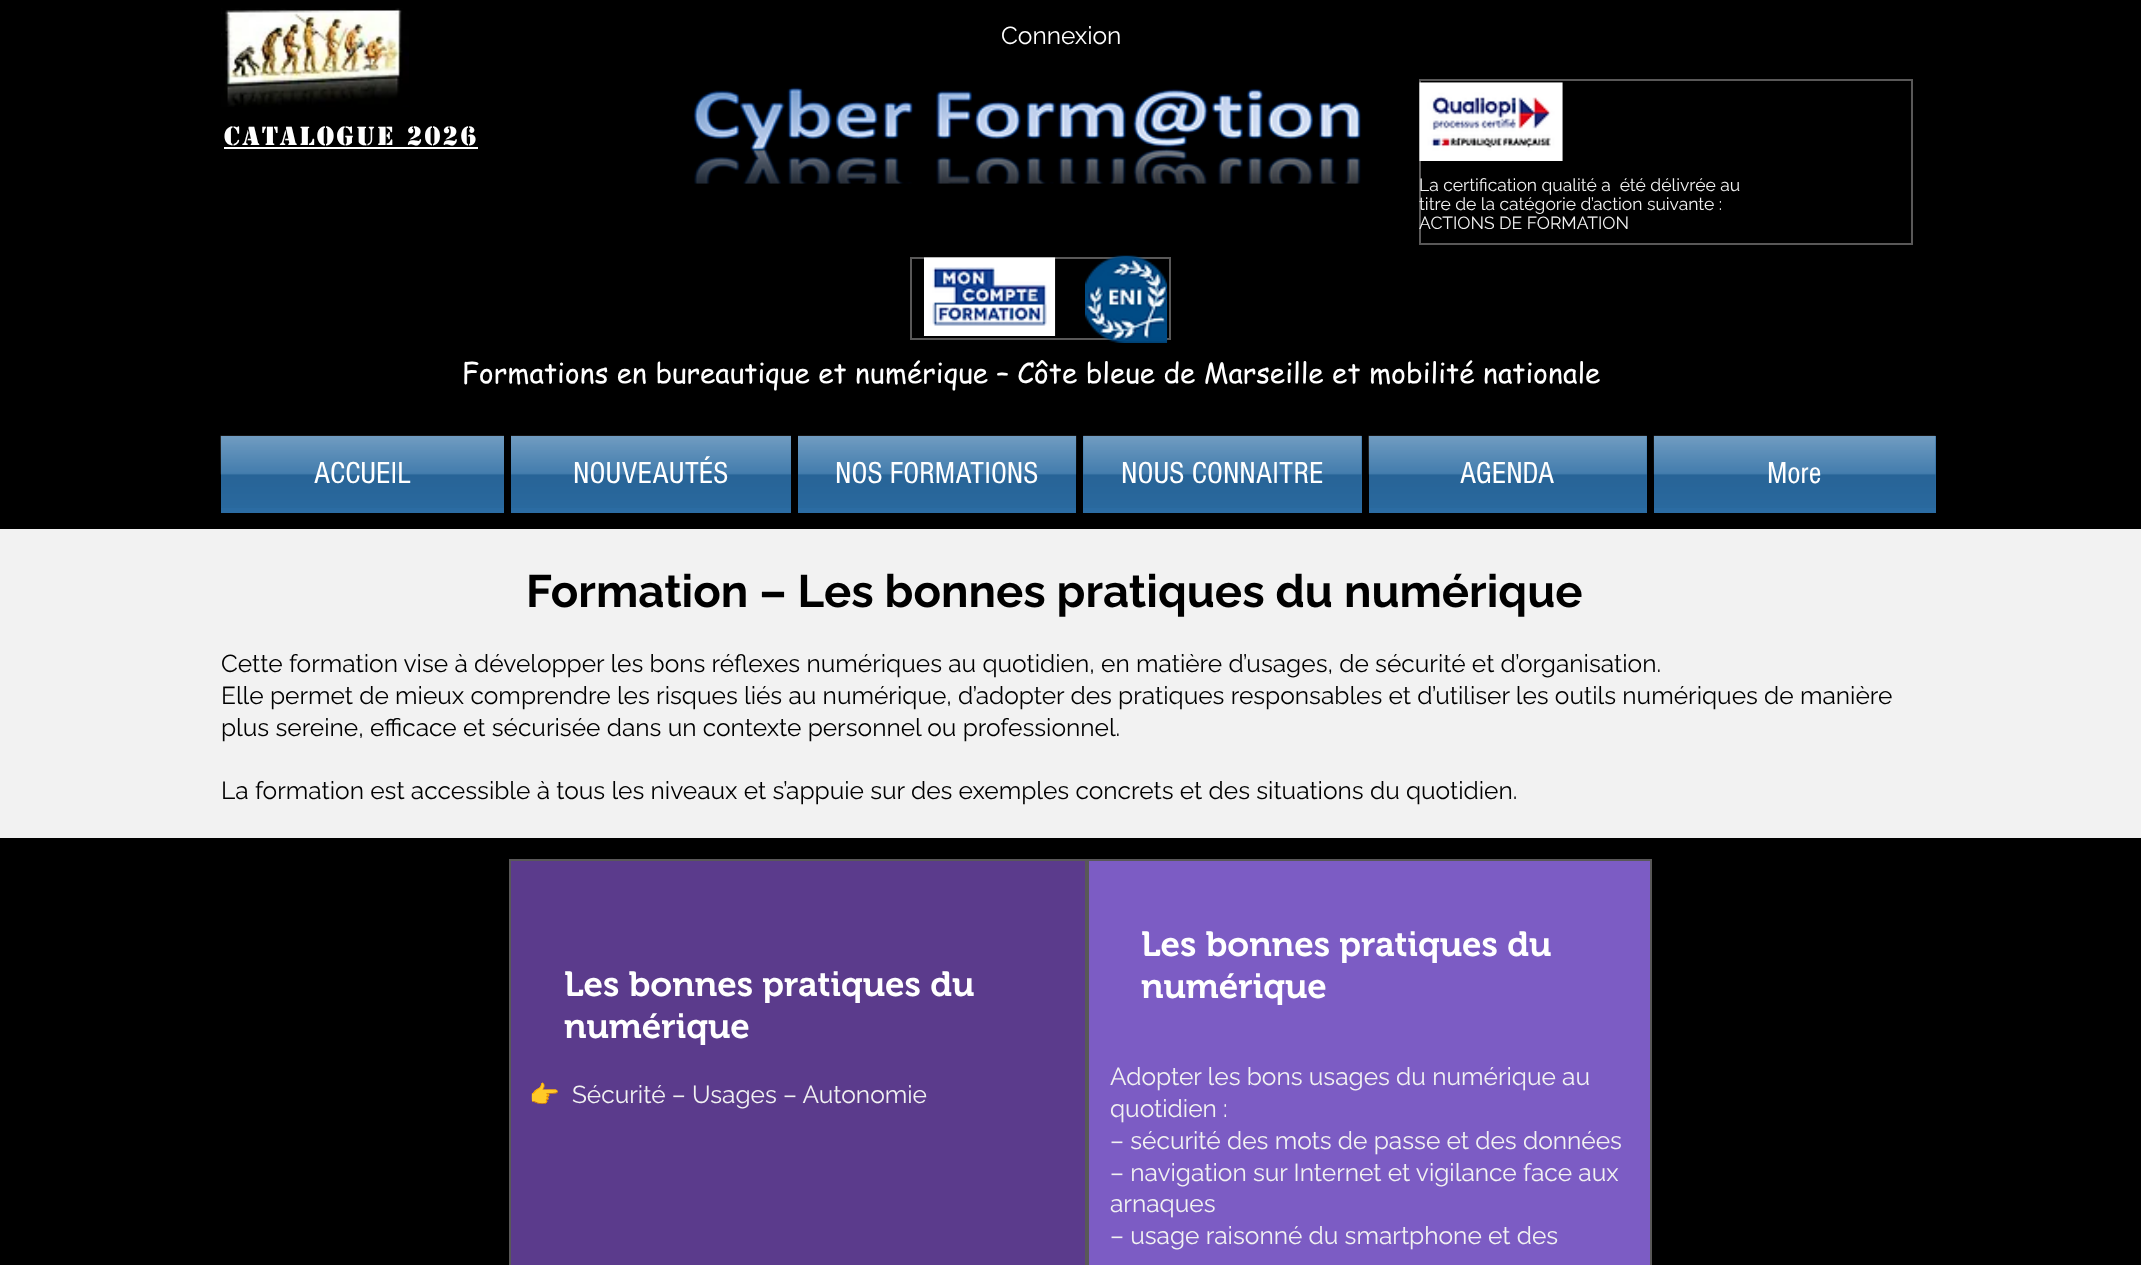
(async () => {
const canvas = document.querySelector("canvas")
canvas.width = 2141
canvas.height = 1265
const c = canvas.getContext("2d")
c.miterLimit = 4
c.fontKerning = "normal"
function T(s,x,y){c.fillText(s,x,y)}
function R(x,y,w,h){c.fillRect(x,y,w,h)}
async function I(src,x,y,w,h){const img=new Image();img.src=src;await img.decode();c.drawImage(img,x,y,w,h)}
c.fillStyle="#000"
R(0,0,2141,1265)
await I("1.png",221,8,188,99)
c.font="24.5px Raleway"
c.fillStyle="#fff"
T("Connexion",1001,44)
c.letterSpacing="2.5px"
c.font="bold 24.5px 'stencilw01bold'"
T("catalogue 2026",224,145)
R(224,147,254,2)
await I("2.png",693,87,668,97)
c.strokeStyle="#595858"
c.lineWidth=2
c.strokeRect(1420,80,492,164)
await I("3.png",1419,82,144,79)
c.letterSpacing="0px"
c.font="17.5px Raleway"
c.fillStyle="#f2f2f2"
T("La certification qualité a  été délivrée au",1419,191)
T("titre de la catégorie d’action suivante :",1419,210)
T("ACTIONS DE FORMATION",1419,229)
c.strokeRect(911,258,259,81)
await I("4.png",924,257,132,79)
await I("5.png",1085,255,83,88)
c.font="28px 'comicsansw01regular'"
c.fillStyle="#fff"
T("Formations en bureautique et numérique – Côte bleue de Marseille et mobilité nationale",462,383)
c.fillStyle="#2b6ca3"
R(221,436,283,77)
await I("6.png",220,435,284,73)
c.font="31.5px 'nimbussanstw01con'"
c.fillStyle="#fff"
T("ACCUEIL",314,483)
c.fillStyle="#2b6ca3"
R(511,436,280,77)
await I("7.png",511,435,280,73)
c.fillStyle="#fff"
T("NOUVEAUTÉS",573,483)
c.fillStyle="#2b6ca3"
R(798,436,278,77)
await I("8.png",798,435,279,73)
c.fillStyle="#fff"
T("NOS FORMATIONS",835,483)
c.fillStyle="#2b6ca3"
R(1083,436,279,77)
await I("9.png",1083,435,279,73)
c.fillStyle="#fff"
T("NOUS CONNAITRE",1121,483)
c.fillStyle="#2b6ca3"
R(1369,436,278,77)
await I("10.png",1368,435,279,73)
c.fillStyle="#fff"
T("AGENDA",1460,483)
c.fillStyle="#2b6ca3"
R(1654,436,282,77)
await I("11.png",1653,435,283,73)
c.fillStyle="#fff"
T("More",1767,483)
c.fillStyle="#f2f2f2"
R(0,529,2141,309)
c.font="bold 45.5px Raleway"
c.fillStyle="#000"
T("Formation – Les bonnes pratiques du numérique",526,607)
c.font="24.5px Raleway"
T("Cette formation vise à développer les bons réflexes numériques au quotidien, en matière d’usages, de sécurité et d’organisation.",221,672)
T("Elle permet de mieux comprendre les risques liés au numérique, d’adopter des pratiques responsables et d’utiliser les outils numériques de manière",221,704)
T("plus sereine, efficace et sécurisée dans un contexte personnel ou professionnel.",221,736)
T("La formation est accessible à tous les niveaux et s’appuie sur des exemples concrets et des situations du quotidien.",221,799)
c.fillStyle="#5b3b8c"
c.beginPath()
c.rect(510,860,576,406)
c.fill()
c.stroke()
c.font="600 35px 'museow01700'"
c.fillStyle="#fff"
T("Les bonnes pratiques du",564,996)
T("numérique",564,1038)
c.font="24.5px Noto Color Emoji"
c.fillStyle="#f2f2f2"
T("👉",529,1103)
c.font="24.5px Raleway"
T("Sécurité – Usages – Autonomie",572,1103)
c.fillStyle="#7c5cc4"
c.beginPath()
c.rect(1088,860,563,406)
c.fill()
c.stroke()
c.font="600 35px 'museow01700'"
c.fillStyle="#fff"
T("Les bonnes pratiques du",1141,956)
T("numérique",1141,998)
c.font="24.5px Raleway"
c.fillStyle="#f2f2f2"
T("Adopter les bons usages du numérique au",1110,1085)
T("quotidien :",1110,1117)
T("– sécurité des mots de passe et des données",1110,1149)
T("– navigation sur Internet et vigilance face aux",1110,1181)
T("arnaques",1110,1212)
T("– usage raisonné du smartphone et des",1110,1244)
})()
